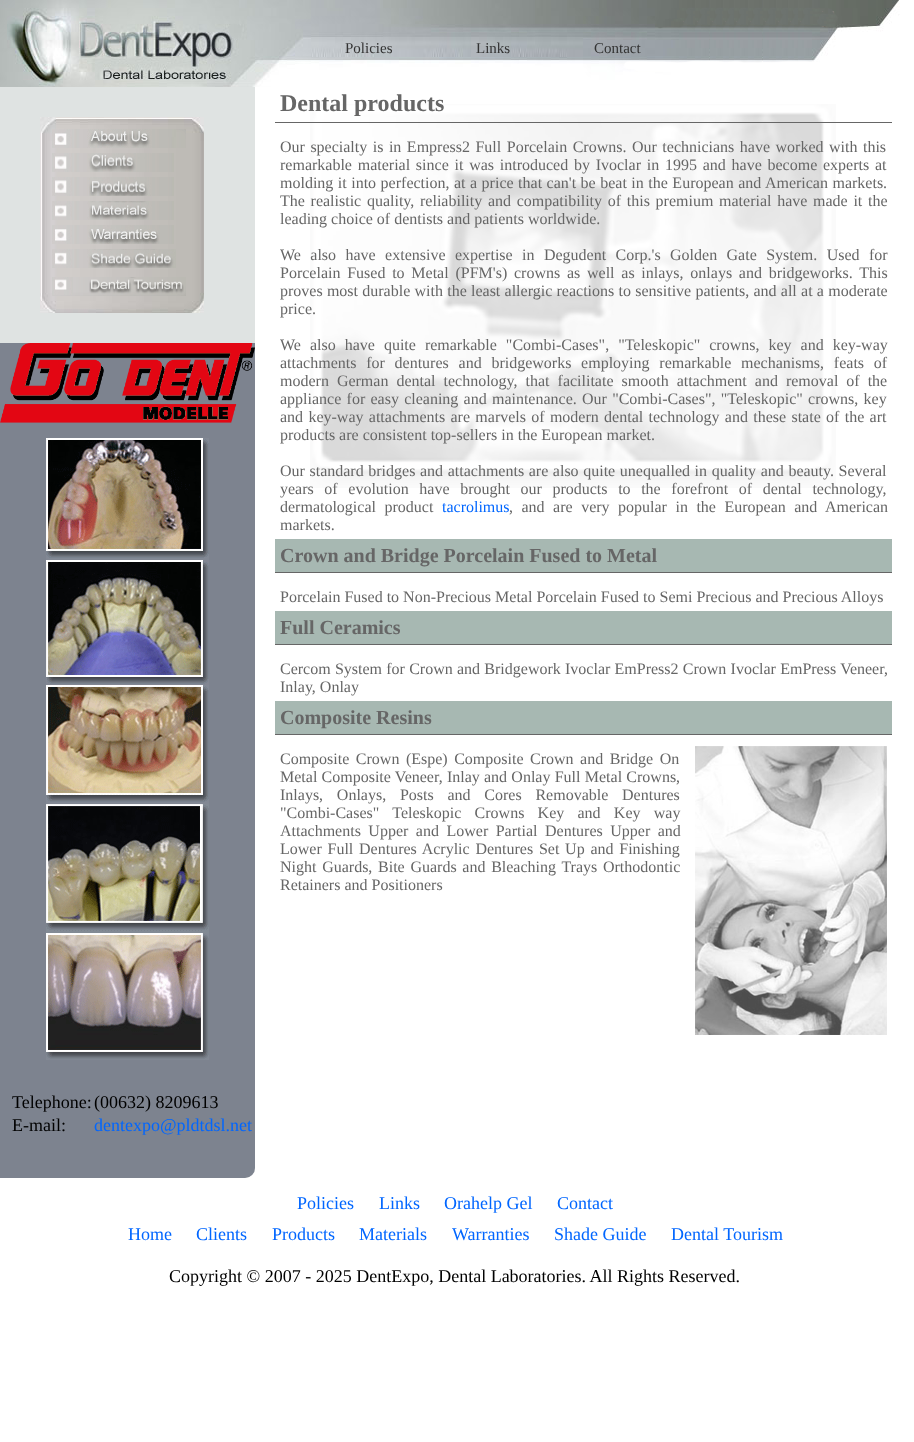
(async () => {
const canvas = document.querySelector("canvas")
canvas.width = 914
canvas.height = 1442
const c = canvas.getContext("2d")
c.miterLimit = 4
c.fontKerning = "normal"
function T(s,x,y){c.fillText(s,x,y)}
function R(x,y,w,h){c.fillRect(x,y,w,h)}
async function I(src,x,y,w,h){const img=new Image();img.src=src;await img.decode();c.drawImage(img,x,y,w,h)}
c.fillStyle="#fff"
R(0,0,914,1442)
await I("1.png",0,0,900,87)
c.font="15px Liberation Serif"
c.fillStyle="#333"
T("Policies",345,53)
T("Links",476,53)
T("Contact",594,53)
await I("2.png",310,104,526,384)
c.fillStyle="#666"
R(275,122,617,1)
c.font="bold 24px Liberation Serif"
T("Dental products",280,111)
c.wordSpacing="1.5px"
c.font="16px Liberation Serif"
T("Our specialty is in Empress2 Full Porcelain Crowns. Our technicians have worked with this",280,152)
c.wordSpacing="1.75px"
T("remarkable material since it was introduced by Ivoclar in 1995 and have become experts at",280,170)
c.wordSpacing="0.5px"
T("molding it into perfection, at a price that can't be beat in the European and American markets.",280,188)
c.wordSpacing="1.7px"
T("The realistic quality, reliability and compatibility of this premium material have made it the",280,206)
c.wordSpacing="0px"
T("leading choice of dentists and patients worldwide.",280,224)
c.wordSpacing="5.4px"
T("We also have extensive expertise in Degudent Corp.'s Golden Gate System. Used for",280,260)
c.wordSpacing="2.75px"
T("Porcelain Fused to Metal (PFM's) crowns as well as inlays, onlays and bridgeworks. This",280,278)
c.wordSpacing="0.25px"
T("proves most durable with the least allergic reactions to sensitive patients, and all at a moderate",280,296)
c.wordSpacing="0px"
T("price.",280,314)
c.wordSpacing="5px"
T("We also have quite remarkable \"Combi-Cases\", \"Teleskopic\" crowns, key and key-way",280,350)
c.wordSpacing="5.75px"
T("attachments for dentures and bridgeworks employing remarkable mechanisms, feats of",280,368)
c.wordSpacing="4px"
T("modern German dental technology, that facilitate smooth attachment and removal of the",280,386)
c.wordSpacing="1.25px"
T("appliance for easy cleaning and maintenance. Our \"Combi-Cases\", \"Teleskopic\" crowns, key",280,404)
c.wordSpacing="1.3px"
T("and key-way attachments are marvels of modern dental technology and these state of the art",280,422)
c.wordSpacing="0px"
T("products are consistent top-sellers in the European market.",280,440)
c.wordSpacing="0.6px"
T("Our standard bridges and attachments are also quite unequalled in quality and beauty. Several",280,476)
c.wordSpacing="6.6px"
T("years of evolution have brought our products to the forefront of dental technology,",280,494)
c.wordSpacing="4.5px"
T("dermatological product",280,512)
c.wordSpacing="0px"
c.fillStyle="#06f"
T("tacrolimus",442,512)
c.wordSpacing="4.5px"
c.fillStyle="#666"
T(", and are very popular in the European and American",509,512)
c.wordSpacing="0px"
T("markets.",280,530)
c.fillStyle="#a7b8b2"
R(275,539,617,33)
c.fillStyle="#666"
R(275,572,617,1)
c.font="bold 20px Liberation Serif"
T("Crown and Bridge Porcelain Fused to Metal",280,562)
c.font="16px Liberation Serif"
T("Porcelain Fused to Non-Precious Metal Porcelain Fused to Semi Precious and Precious Alloys",280,602)
c.fillStyle="#a7b8b2"
R(275,611,617,33)
c.fillStyle="#666"
R(275,644,617,1)
c.font="bold 20px Liberation Serif"
T("Full Ceramics",280,634)
c.wordSpacing="0.25px"
c.font="16px Liberation Serif"
T("Cercom System for Crown and Bridgework Ivoclar EmPress2 Crown Ivoclar EmPress Veneer,",280,674)
c.wordSpacing="0px"
T("Inlay, Onlay",280,692)
c.fillStyle="#a7b8b2"
R(275,701,617,33)
c.fillStyle="#666"
R(275,734,617,1)
c.font="bold 20px Liberation Serif"
T("Composite Resins",280,724)
c.wordSpacing="2.5px"
c.font="16px Liberation Serif"
T("Composite Crown (Espe) Composite Crown and Bridge On",280,764)
c.wordSpacing="0.25px"
T("Metal Composite Veneer, Inlay and Onlay Full Metal Crowns,",280,782)
c.wordSpacing="9.75px"
T("Inlays, Onlays, Posts and Cores Removable Dentures",280,800)
c.wordSpacing="9.25px"
T("\"Combi-Cases\" Teleskopic Crowns Key and Key way",280,818)
c.wordSpacing="3.5px"
T("Attachments Upper and Lower Partial Dentures Upper and",280,836)
c.wordSpacing="1.75px"
T("Lower Full Dentures Acrylic Dentures Set Up and Finishing",280,854)
c.wordSpacing="1.7px"
T("Night Guards, Bite Guards and Bleaching Trays Orthodontic",280,872)
c.wordSpacing="0px"
T("Retainers and Positioners",280,890)
await I("3.png",695,746,192,289)
c.fillStyle="#dfe3e2"
c.beginPath()
c.roundRect(0,87,255,1091,[0,0,10,0])
c.fill()
await I("4.png",40,117,164,196)
await I("5.png",52,129,134,19)
await I("6.png",52,153,122,19)
await I("7.png",52,177,122,19)
await I("8.png",52,201,122,19)
await I("9.png",52,225,122,19)
await I("10.png",52,249,124,19)
await I("11.png",52,277,134,19)
c.fillStyle="#7d838f"
c.beginPath()
c.roundRect(0,343,255,835,[0,0,10,0])
c.fill()
await I("12.png",0,343,255,80)
await I("13.png",46,438,163,122)
await I("14.png",46,560,163,125)
await I("15.png",46,685,163,119)
await I("16.png",46,804,163,129)
await I("17.png",46,933,163,127)
c.font="18px Liberation Serif"
c.fillStyle="#000"
T("Telephone:",12,1108)
T("(00632) 8209613",94,1108)
T("E-mail:",12,1131)
c.fillStyle="#06f"
T("dentexpo@pldtdsl.net",94,1131)
T("Policies",297,1209)
T("Links",379,1209)
T("Orahelp Gel",444,1209)
T("Contact",557,1209)
T("Home",128,1240)
T("Clients",196,1240)
T("Products",272,1240)
T("Materials",359,1240)
T("Warranties",452,1240)
T("Shade Guide",554,1240)
T("Dental Tourism",671,1240)
c.fillStyle="#000"
T("Copyright © 2007 - 2025 DentExpo, Dental Laboratories. All Rights Reserved.",169,1282)
})()
